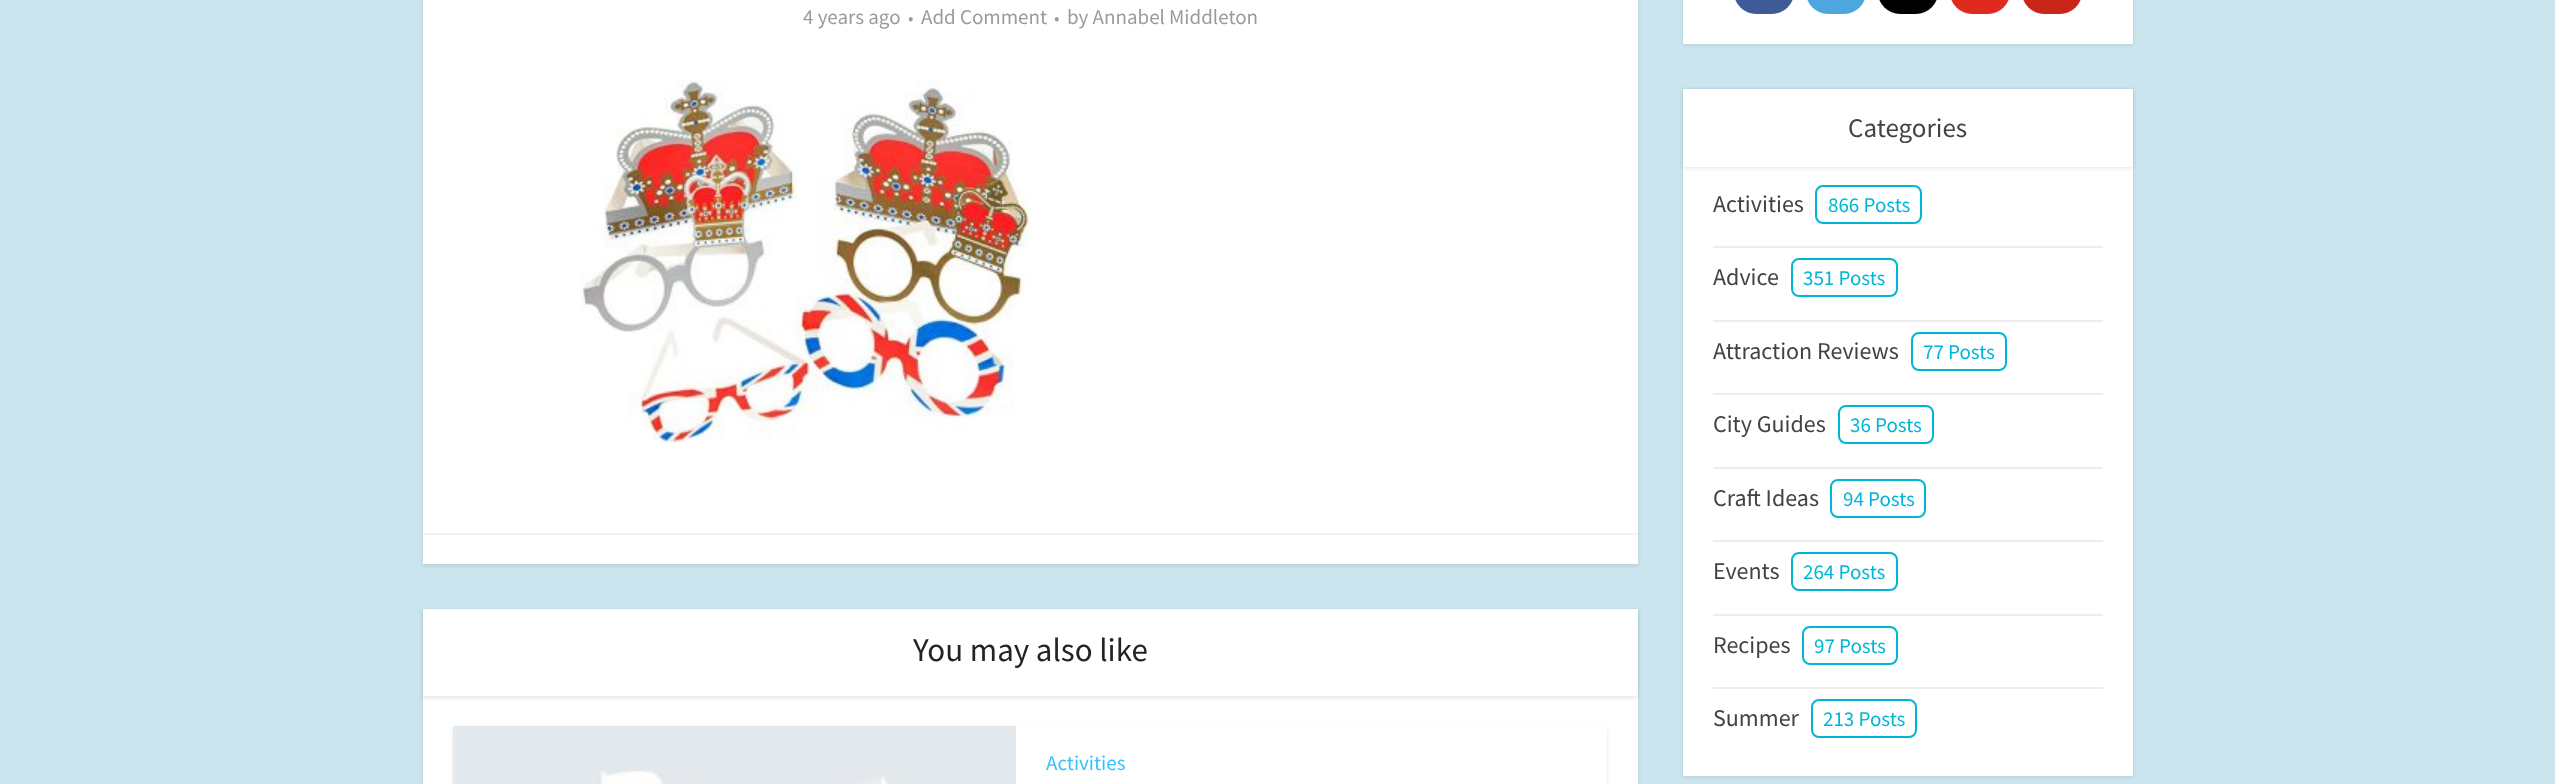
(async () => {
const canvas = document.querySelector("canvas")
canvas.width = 2555
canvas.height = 784
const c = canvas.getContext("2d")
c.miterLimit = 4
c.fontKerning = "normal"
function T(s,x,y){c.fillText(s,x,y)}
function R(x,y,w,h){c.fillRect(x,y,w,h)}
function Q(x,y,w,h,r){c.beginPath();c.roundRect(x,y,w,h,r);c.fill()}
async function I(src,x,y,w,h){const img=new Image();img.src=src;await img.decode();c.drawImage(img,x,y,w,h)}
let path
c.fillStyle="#cbe5ee"
R(0,0,2555,784)
c.fillStyle="#0000001a"
c.filter="blur(2px)"
c.beginPath()
c.rect(423,-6,1215,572)
c.fill()
c.filter="none"
c.fillStyle="#fff"
R(423,0,1215,564)
c.font="21px Source Sans Pro"
c.fillStyle="#9b9b9b"
T("4 years ago",803,24)
c.font="18px Source Sans Pro"
T("•",908,24)
c.font="21px Source Sans Pro"
T("Add Comment",921,24)
c.font="18px Source Sans Pro"
T("•",1054,24)
c.font="21px Source Sans Pro"
T("by Annabel Middleton",1067,24)
await I("1.png",580,79,451,364)
c.fillStyle="#f2f2f2"
R(423,533,1215,2)
c.fillStyle="#0000001a"
c.filter="blur(2px)"
c.beginPath()
c.rect(423,611,1215,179)
c.fill()
c.filter="none"
c.fillStyle="#fff"
R(423,609,1215,175)
c.save()
path = new Path2D("M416 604h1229v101h-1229zm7 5h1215v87h-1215z")
c.clip(path,"evenodd")
c.fillStyle="#0000001a"
c.filter="blur(2px)"
c.beginPath()
c.rect(423,611,1215,87)
c.fill()
c.filter="none"
c.restore()
c.font="33px Source Sans Pro"
c.fillStyle="#232323"
T("You may also like",913,661)
c.fillStyle="#0000001a"
c.filter="blur(2px)"
c.beginPath()
c.rect(453,728,1154,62)
c.fill()
c.filter="none"
c.fillStyle="#fff"
R(1016,726,591,58)
await I("2.png",453,726,563,58)
c.font="21px Source Sans Pro"
c.fillStyle="#33c3ff"
T("Activities",1046,770)
c.fillStyle="#0000001a"
c.filter="blur(2px)"
c.beginPath()
c.rect(1683,-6,450,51)
c.fill()
c.filter="none"
c.fillStyle="#fff"
R(1683,0,450,44)
c.fillStyle="#3e5b98"
Q(1734,-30,60,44,30)
c.fillStyle="#4da7de"
Q(1806,-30,60,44,30)
c.fillStyle="#000"
Q(1878,-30,60,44,30)
c.fillStyle="#e02a20"
Q(1950,-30,60,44,30)
c.fillStyle="#c92619"
Q(2022,-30,60,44,30)
c.fillStyle="#0000001a"
c.filter="blur(2px)"
c.beginPath()
c.rect(1683,90,450,687)
c.fill()
c.filter="none"
c.fillStyle="#fff"
R(1683,167,450,609)
c.fillStyle="#0000001a"
c.filter="blur(2px)"
c.beginPath()
c.rect(1683,90,450,78)
c.fill()
c.filter="none"
c.fillStyle="#fff"
R(1683,89,450,78)
c.font="27px Source Sans Pro"
c.fillStyle="#424346"
T("Categories",1848,137)
c.fillStyle="#ededed"
R(1713,246,390,2)
c.font="24px Source Sans Pro"
c.fillStyle="#424346"
T("Activities",1713,212)
c.beginPath()
c.roundRect(1816,186,105,37,7)
c.strokeStyle="#00b6d6"
c.lineWidth=2
c.stroke()
c.font="21px Source Sans Pro"
c.fillStyle="#00b6d6"
T("866 Posts",1828,212)
c.fillStyle="#ededed"
R(1713,320,390,2)
c.font="24px Source Sans Pro"
c.fillStyle="#424346"
T("Advice",1713,285)
c.beginPath()
c.roundRect(1792,259,105,37,7)
c.stroke()
c.font="21px Source Sans Pro"
c.fillStyle="#00b6d6"
T("351 Posts",1803,285)
c.fillStyle="#ededed"
R(1713,393,390,2)
c.font="24px Source Sans Pro"
c.fillStyle="#424346"
T("Attraction Reviews",1713,359)
c.beginPath()
c.roundRect(1912,333,94,37,7)
c.stroke()
c.font="21px Source Sans Pro"
c.fillStyle="#00b6d6"
T("77 Posts",1923,359)
c.fillStyle="#ededed"
R(1713,467,390,2)
c.font="24px Source Sans Pro"
c.fillStyle="#424346"
T("City Guides",1713,432)
c.beginPath()
c.roundRect(1839,406,94,37,7)
c.stroke()
c.font="21px Source Sans Pro"
c.fillStyle="#00b6d6"
T("36 Posts",1850,432)
c.fillStyle="#ededed"
R(1713,540,390,2)
c.font="24px Source Sans Pro"
c.fillStyle="#424346"
T("Craft Ideas",1713,506)
c.beginPath()
c.roundRect(1831,480,94,37,7)
c.stroke()
c.font="21px Source Sans Pro"
c.fillStyle="#00b6d6"
T("94 Posts",1843,506)
c.fillStyle="#ededed"
R(1713,614,390,2)
c.font="24px Source Sans Pro"
c.fillStyle="#424346"
T("Events",1713,579)
c.beginPath()
c.roundRect(1792,553,105,37,7)
c.stroke()
c.font="21px Source Sans Pro"
c.fillStyle="#00b6d6"
T("264 Posts",1803,579)
c.fillStyle="#ededed"
R(1713,687,390,2)
c.font="24px Source Sans Pro"
c.fillStyle="#424346"
T("Recipes",1713,653)
c.beginPath()
c.roundRect(1803,627,94,37,7)
c.stroke()
c.font="21px Source Sans Pro"
c.fillStyle="#00b6d6"
T("97 Posts",1814,653)
c.font="24px Source Sans Pro"
c.fillStyle="#424346"
T("Summer",1713,726)
c.beginPath()
c.roundRect(1812,700,104,37,7)
c.stroke()
c.font="21px Source Sans Pro"
c.fillStyle="#00b6d6"
T("213 Posts",1823,726)
})()
